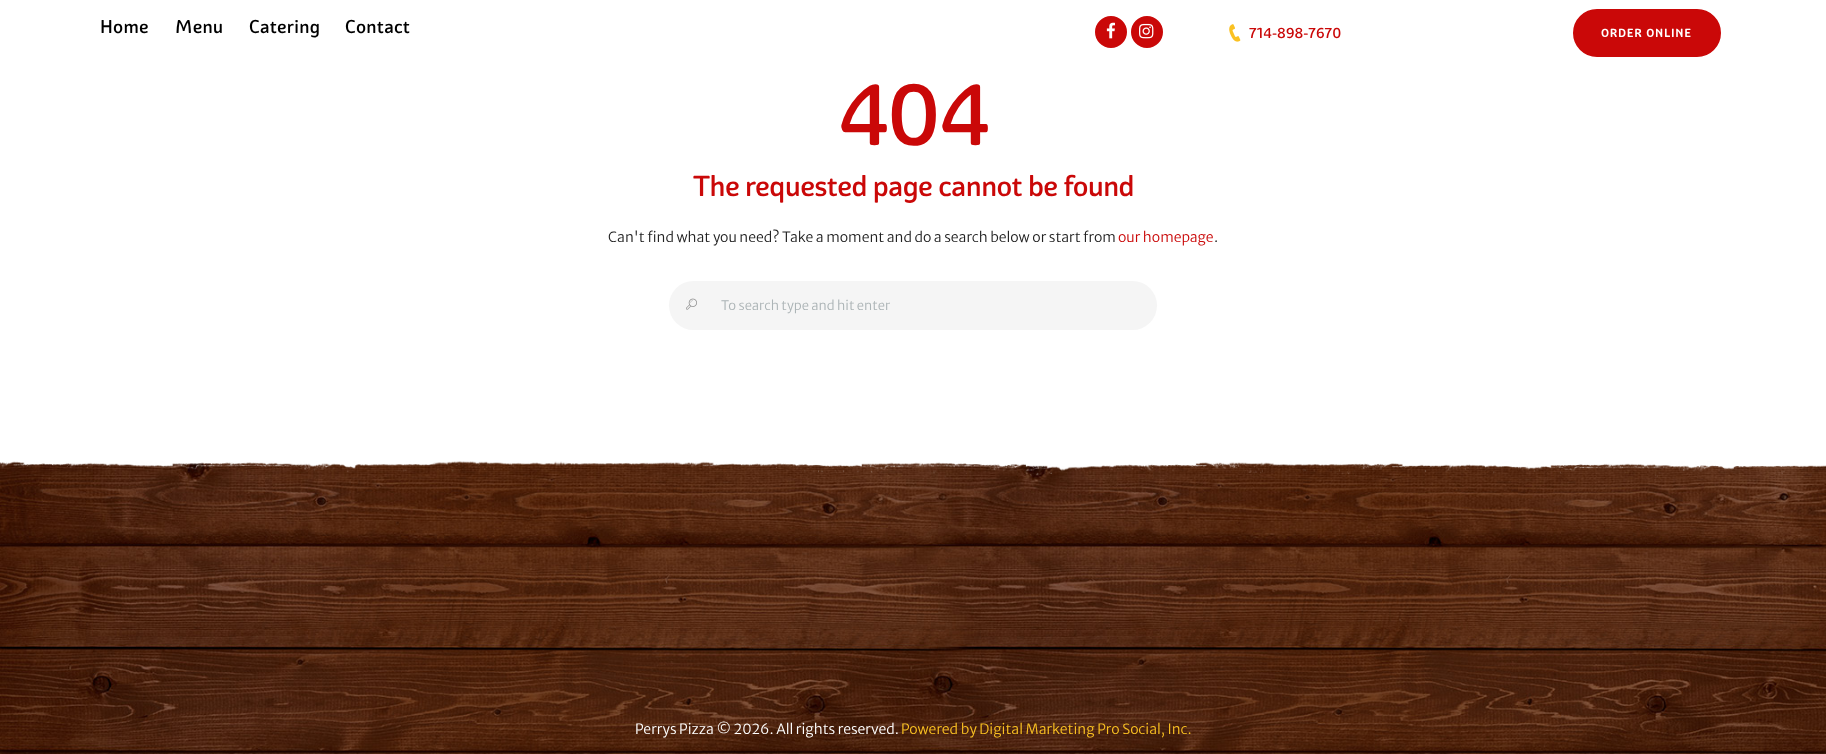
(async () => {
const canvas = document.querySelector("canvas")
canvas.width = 1826
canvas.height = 754
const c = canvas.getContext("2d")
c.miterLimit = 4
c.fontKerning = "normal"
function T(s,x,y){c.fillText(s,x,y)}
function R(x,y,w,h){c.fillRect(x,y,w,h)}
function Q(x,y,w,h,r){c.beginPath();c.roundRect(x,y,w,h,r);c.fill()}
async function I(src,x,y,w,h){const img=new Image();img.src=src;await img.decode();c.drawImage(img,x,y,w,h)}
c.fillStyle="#fff"
R(0,0,1826,754)
c.letterSpacing="0.25px"
c.font="500 18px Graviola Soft"
c.fillStyle="#000"
T("Home",100,33)
T("Menu",175,33)
T("Catering",249,33)
T("Contact",345,33)
c.fillStyle="#ca0808"
c.beginPath()
c.arc(1111,32,15,0,7)
c.fill()
c.strokeStyle="#ca0808"
c.lineWidth=2
c.stroke()
await I("1.png",1106,22,9,17)
c.beginPath()
c.arc(1147,32,15,0,7)
c.fill()
c.stroke()
await I("2.png",1139,23,15,16)
await I("3.png",1229,24,12,18)
c.letterSpacing="0.1px"
c.font="500 14px Graviola Soft"
T("714-898-7670",1249,38)
c.beginPath()
c.roundRect(1574,10,146,46,23)
c.fill()
c.stroke()
c.letterSpacing="1.1px"
c.font="bold 11px Graviola Soft"
c.fillStyle="#fff"
T("ORDER ONLINE",1601,37)
c.letterSpacing="-2px"
c.font="500 84px Graviola Soft"
c.fillStyle="#ca0808"
T("404",838,145)
c.letterSpacing="-0.55px"
c.font="500 28px Graviola Soft"
T("The requested page cannot be found",693,196)
c.letterSpacing="0px"
c.font="300 14px Merriweather Sans"
c.fillStyle="#222"
T("Can't find what you need? Take a moment and do a search below or start from",608,242)
c.fillStyle="#ca0808"
T("our homepage",1118,242)
c.fillStyle="#222"
T(".",1214,242)
c.fillStyle="#f5f5f5"
Q(669,281,488,49,24.5)
await I("4.png",686,298,11,12)
c.font="300 13px Merriweather Sans"
c.fillStyle="#acb4b6"
T("To search type and hit enter",721,310)
await I("5.png",0,461,1826,293)
c.font="300 14px Merriweather Sans"
c.fillStyle="#fff"
T("Perrys Pizza © 2026. All rights reserved.",635,734)
c.fillStyle="#fac122"
T("Powered by Digital Marketing Pro Social, Inc.",901,734)
})()
